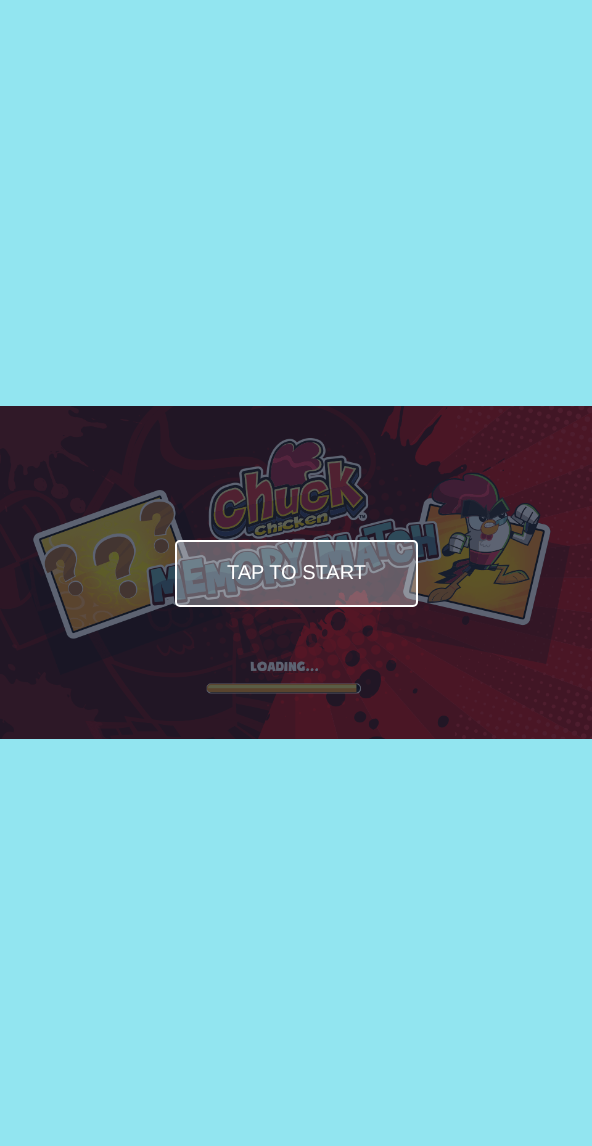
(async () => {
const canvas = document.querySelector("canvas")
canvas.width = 592
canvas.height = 1146
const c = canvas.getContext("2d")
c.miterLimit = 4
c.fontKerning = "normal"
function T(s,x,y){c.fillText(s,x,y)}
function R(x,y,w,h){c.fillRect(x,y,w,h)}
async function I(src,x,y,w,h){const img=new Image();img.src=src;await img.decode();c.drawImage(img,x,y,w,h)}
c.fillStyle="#92e5f0"
R(0,0,592,1146)
await I("1.png",0,406,592,333)
c.fillStyle="#ffffff4d"
c.beginPath()
c.roundRect(176,541,241,65,4)
c.fill()
c.strokeStyle="#fff"
c.lineWidth=2
c.stroke()
c.font="20px Liberation Sans"
c.fillStyle="#fff"
T("TAP TO START",227,579)
})()
